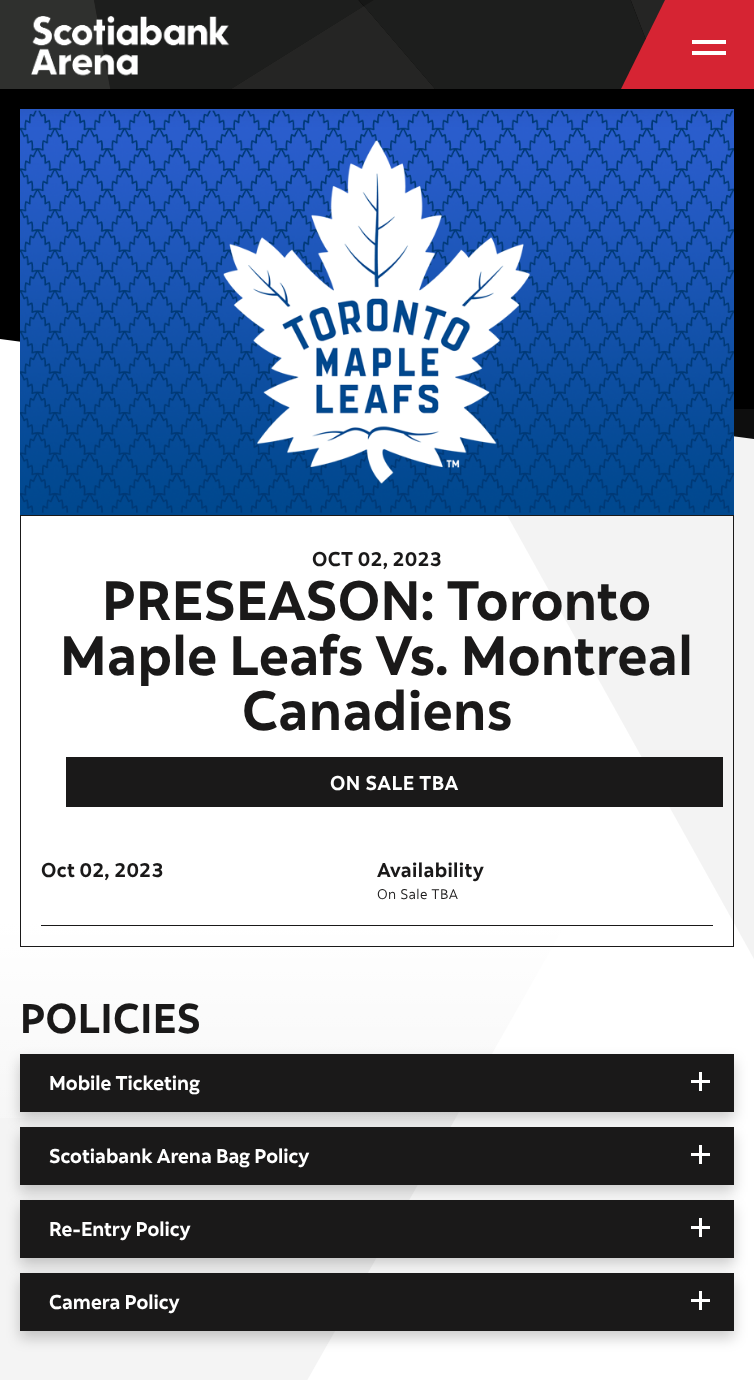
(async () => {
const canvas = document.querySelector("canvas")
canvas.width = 754
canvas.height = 1380
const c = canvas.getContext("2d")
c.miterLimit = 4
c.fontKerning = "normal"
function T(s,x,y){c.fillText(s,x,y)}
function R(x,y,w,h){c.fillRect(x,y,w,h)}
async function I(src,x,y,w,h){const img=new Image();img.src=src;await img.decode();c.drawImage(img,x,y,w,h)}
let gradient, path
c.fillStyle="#fff"
R(0,0,754,1380)
c.fillStyle="#000"
R(0,89,754,350)
c.fillStyle="#fff"
path = new Path2D("M0 439v-100l754 100z")
c.fill(path)
c.fillStyle="#f4f4f4"
path = new Path2D("M0 923h566l-566 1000z")
c.fill(path)
gradient = c.createLinearGradient(377,923,377,1178)
gradient.addColorStop(0,"#fff")
gradient.addColorStop(1,"#ffffff00")
c.fillStyle = gradient
R(0,923,566,195)
c.fillStyle="#8888871a"
path = new Path2D("M754 409v550l-306-550z")
c.fill(path)
await I("3.png",20,109,714,406)
c.fillStyle="#00000066"
c.filter="blur(15px)"
c.beginPath()
c.rect(0,4,754,89)
c.fill()
c.filter="none"
c.fillStyle="#000"
R(0,0,665,89)
await I("1.png",0,0,665,89)
await I("2.png",31,16,199,60)
c.fillStyle="#d62433"
R(665,0,89,89)
path = new Path2D("M665 89h-44l44-89z")
c.fill(path)
c.fillStyle="#fff"
R(692,40,34,4)
R(692,51,34,4)
c.strokeStyle="#1a1919"
c.strokeRect(20.5,515.5,713,431)
c.letterSpacing="0.4px"
c.font="bold 20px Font"
c.fillStyle="#1a1919"
T("OCT 02, 2023",312,566)
c.font="bold 55.4px Font"
T("PRESEASON: Toronto",102,620)
T("Maple Leafs Vs. Montreal",60,675)
T("Canadiens",242,730)
R(66,757,657,50)
c.letterSpacing="0.5px"
c.font="bold 20px Font"
c.fillStyle="#fff"
T("ON SALE TBA",330,790)
c.letterSpacing="0.4px"
c.fillStyle="#1a1919"
T("Oct 02, 2023",41,877)
R(41,925,672,1)
T("Availability",377,877)
c.font="14px Font"
T("On Sale TBA",377,899)
c.font="bold 41.5px Font"
T("POLICIES",20,1033)
c.fillStyle="#00000033"
c.filter="blur(7px)"
c.beginPath()
c.rect(20,1061,714,58)
c.fill()
c.filter="none"
c.lineWidth=4
c.strokeRect(22,1056,710,54)
c.fillStyle="#1a1919"
R(24,1058,706,50)
c.letterSpacing="0px"
c.font="bold 20px Font"
c.fillStyle="#fff"
T("Mobile Ticketing",49,1090)
R(691,1080,19,3)
R(699,1072,3,19)
c.fillStyle="#00000033"
c.filter="blur(7px)"
c.beginPath()
c.rect(20,1134,714,58)
c.fill()
c.filter="none"
c.strokeRect(22,1129,710,54)
c.fillStyle="#1a1919"
R(24,1131,706,50)
c.fillStyle="#fff"
T("Scotiabank Arena Bag Policy",49,1163)
R(691,1153,19,3)
R(699,1145,3,19)
c.fillStyle="#00000033"
c.filter="blur(7px)"
c.beginPath()
c.rect(20,1207,714,58)
c.fill()
c.filter="none"
c.strokeRect(22,1202,710,54)
c.fillStyle="#1a1919"
R(24,1204,706,50)
c.fillStyle="#fff"
T("Re-Entry Policy",49,1236)
R(691,1226,19,3)
R(699,1218,3,19)
c.fillStyle="#00000033"
c.filter="blur(7px)"
c.beginPath()
c.rect(20,1280,714,58)
c.fill()
c.filter="none"
c.strokeRect(22,1275,710,54)
c.fillStyle="#1a1919"
R(24,1277,706,50)
c.fillStyle="#fff"
T("Camera Policy",49,1309)
R(691,1299,19,3)
R(699,1291,3,19)
})()
